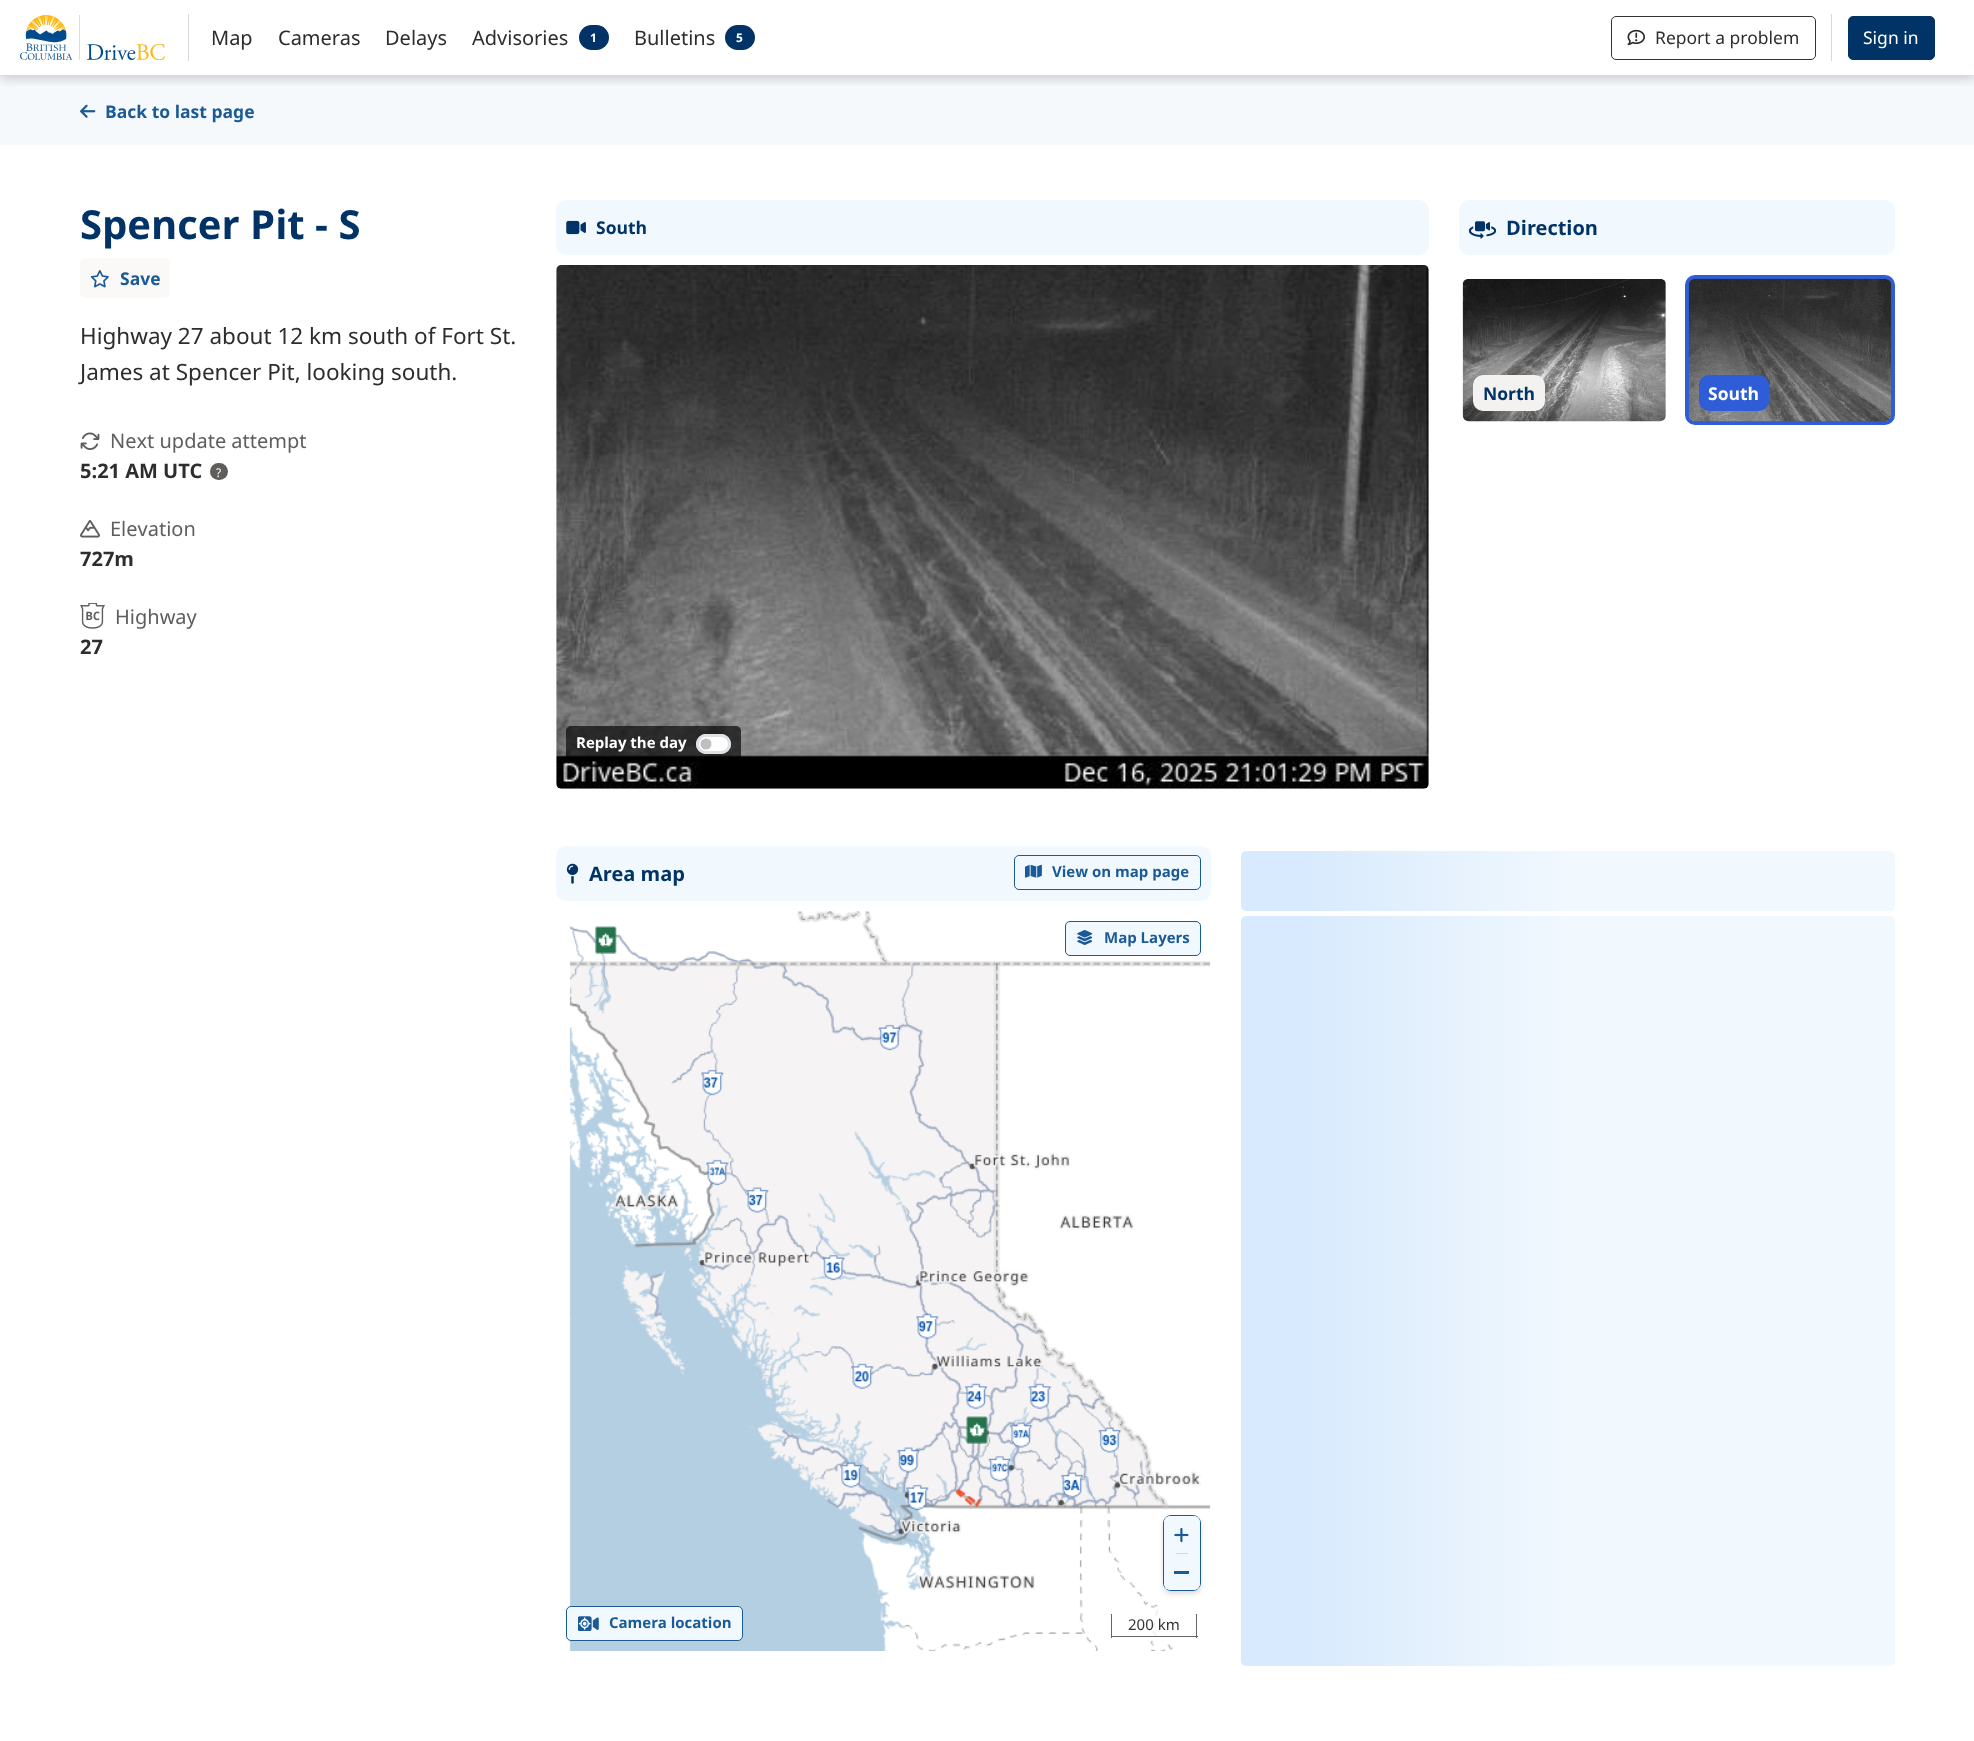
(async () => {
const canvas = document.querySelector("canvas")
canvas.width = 1974
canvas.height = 1741
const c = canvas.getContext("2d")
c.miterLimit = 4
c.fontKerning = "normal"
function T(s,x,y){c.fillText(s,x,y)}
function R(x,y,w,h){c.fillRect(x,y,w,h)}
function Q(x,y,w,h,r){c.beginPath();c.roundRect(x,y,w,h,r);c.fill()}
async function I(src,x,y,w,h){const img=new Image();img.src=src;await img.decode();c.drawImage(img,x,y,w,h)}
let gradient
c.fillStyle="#fff"
R(0,0,1974,1741)
c.fillStyle="#f6f9fc"
R(0,75,1974,70)
c.save()
c.beginPath()
c.rect(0,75,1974,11)
c.clip()
c.fillStyle="#00000033"
c.filter="blur(6px)"
c.beginPath()
c.rect(0,3,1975,75)
c.fill()
c.filter="none"
c.restore()
await I("1.png",20,15,145,45)
c.fillStyle="#d8d8d8"
R(188,14,1,47)
c.font="20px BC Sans"
c.fillStyle="#2d2d2d"
T("Map",211,45)
T("Cameras",278,45)
T("Delays",385,45)
T("Advisories",472,45)
c.fillStyle="#013366"
Q(579,25,30,25,12.5)
c.font="bold 12px BC Sans"
c.fillStyle="#fff"
T("1",590,42)
c.font="20px BC Sans"
c.fillStyle="#2d2d2d"
T("Bulletins",634,45)
c.fillStyle="#013366"
Q(725,25,30,25,12.5)
c.font="bold 12px BC Sans"
c.fillStyle="#fff"
T("5",736,42)
c.beginPath()
c.roundRect(1611.5,16.5,204,43,4.5)
c.strokeStyle="#353433"
c.stroke()
await I("2.png",1627,29,18,17)
c.font="17.5px BC Sans"
c.fillStyle="#2d2d2d"
T("Report a problem",1655,44)
c.fillStyle="#d8d8d8"
R(1831,14,1,47)
c.fillStyle="#013366"
c.beginPath()
c.roundRect(1848.5,16.5,86,43,4.5)
c.fill()
c.strokeStyle="#013366"
c.stroke()
c.fillStyle="#fff"
T("Sign in",1863,44)
await I("3.png",80,104,16,14)
c.font="bold 17.5px BC Sans"
c.fillStyle="#1a5a96"
T("Back to last page",105,118)
c.font="bold 40px BC Sans"
c.fillStyle="#013366"
T("Spencer Pit - S",80,239)
c.fillStyle="#faf9f8"
Q(80,258,90,40,5)
await I("4.png",90,270,19,18)
c.font="bold 17.5px BC Sans"
c.fillStyle="#1a5a96"
T("Save",120,285)
c.font="22.5px BC Sans"
c.fillStyle="#2d2d2d"
T("Highway 27 about 12 km south of Fort St.",80,344)
T("James at Spencer Pit, looking south.",80,380)
await I("5.png",80,432,20,18)
c.font="20px BC Sans"
c.fillStyle="#605e5c"
T("Next update attempt",110,448)
c.font="bold 20px BC Sans"
c.fillStyle="#2d2d2d"
T("5:21 AM UTC",80,478)
c.fillStyle="#605e5c"
Q(210,463,18,17,8.5)
c.font="12px BC Sans"
c.fillStyle="#fff"
T("?",216,477)
await I("6.png",80,520,20,18)
c.font="20px BC Sans"
c.fillStyle="#605e5c"
T("Elevation",110,536)
c.font="bold 20px BC Sans"
c.fillStyle="#2d2d2d"
T("727m",80,566)
await I("7.png",80,603,25,26)
c.font="20px BC Sans"
c.fillStyle="#605e5c"
T("Highway",115,624)
c.font="bold 20px BC Sans"
c.fillStyle="#2d2d2d"
T("27",80,654)
c.fillStyle="#f1f8fe"
Q(556,200,873,55,10)
await I("8.png",566,220,20,15)
c.font="bold 17.5px BC Sans"
c.fillStyle="#013366"
T("South",596,234)
await I("9.png",556,265,873,524)
c.fillStyle="#000000a6"
Q(566,726,175,35,5)
c.font="bold 15px BC Sans"
c.fillStyle="#fff"
T("Replay the day",576,748)
Q(696,734,35,20,10)
c.fillStyle="#bfbfbf"
c.beginPath()
c.arc(706,744,5.5,0,7)
c.fill()
c.beginPath()
c.roundRect(697.5,735.5,32,17,8.5)
c.strokeStyle="#dee2e6"
c.lineWidth=3
c.stroke()
c.fillStyle="#f1f8fe"
Q(1459,200,436,55,10)
await I("10.png",1469,221,27,18)
c.font="bold 20px BC Sans"
c.fillStyle="#013366"
T("Direction",1506,235)
await I("11.png",1462,279,204,143)
c.fillStyle="#f3f2f1"
Q(1473,375,72,36,10)
c.font="bold 17.5px BC Sans"
c.fillStyle="#013366"
T("North",1483,400)
c.beginPath()
c.roundRect(1687,277,206,146,8)
c.strokeStyle="#2e5dd7"
c.lineWidth=4
c.stroke()
await I("12.png",1688,278,204,144)
c.fillStyle="#2e5dd7"
Q(1699,375,70,36,10)
c.fillStyle="#fff"
T("South",1708,400)
c.fillStyle="#f1f8fe"
Q(556,846,655,55,10)
c.beginPath()
c.roundRect(1014.5,855.5,186,34,4.5)
c.strokeStyle="#1a5a96"
c.lineWidth=1
c.stroke()
await I("13.png",1025,864,17,14)
c.font="bold 15px BC Sans"
c.fillStyle="#1a5a96"
T("View on map page",1052,877)
await I("17.png",569,911,642,740)
c.fillStyle="#f1f8fe"
c.beginPath()
c.roundRect(1065.5,921.5,135,34,4.5)
c.fill()
c.stroke()
await I("14.png",1077,930,16,15)
c.fillStyle="#1a5a96"
T("Map Layers",1104,943)
c.fillStyle="#f1f8fe"
c.beginPath()
c.roundRect(566.5,1606.5,176,34,4.5)
c.fill()
c.stroke()
await I("15.png",578,1616,21,15)
c.fillStyle="#1a5a96"
T("Camera location",609,1628)
c.fillStyle="#00000021"
c.filter="blur(2.5px)"
c.beginPath()
c.roundRect(1163,1518,38,76,8)
c.fill()
c.filter="none"
c.fillStyle="#f1f8fe"
c.beginPath()
c.roundRect(1163.5,1515.5,37,75,7.5)
c.fill()
c.stroke()
c.beginPath()
c.roundRect(1164,1516,36,37,[6,6,0,0])
c.fill()
await I("16.png",1174,1527,15,16)
c.fillStyle="#d8d8d8"
R(1176,1553,12,1)
c.fillStyle="#f1f8fe"
c.beginPath()
c.roundRect(1164,1554,36,36,[0,0,6,6])
c.fill()
c.fillStyle="#1a5a96"
R(1174,1571,15,3)
c.fillStyle="#ffffffbf"
Q(1108,1610,93,31,5)
c.fillStyle="#666"
R(1196,1614,1,24)
R(1111,1636,87,1)
R(1111,1614,1,24)
c.font="15px BC Sans"
c.fillStyle="#333"
T("200 km",1128,1630)
await I("18.png",566,863,13,21)
c.font="bold 20px BC Sans"
c.fillStyle="#013366"
T("Area map",589,881)
gradient = c.createLinearGradient(1241,881,1895,881)
gradient.addColorStop(.1,"#d8eafd")
gradient.addColorStop(.5,"#f1f8fe")
gradient.addColorStop(.75,"#f1f8fe")
c.fillStyle = gradient
Q(1241,851,654,60,5)
gradient = c.createLinearGradient(1241,1291,1895,1291)
gradient.addColorStop(.1,"#d8eafd")
gradient.addColorStop(.5,"#f1f8fe")
gradient.addColorStop(.75,"#f1f8fe")
c.fillStyle = gradient
Q(1241,916,654,750,5)
})()
